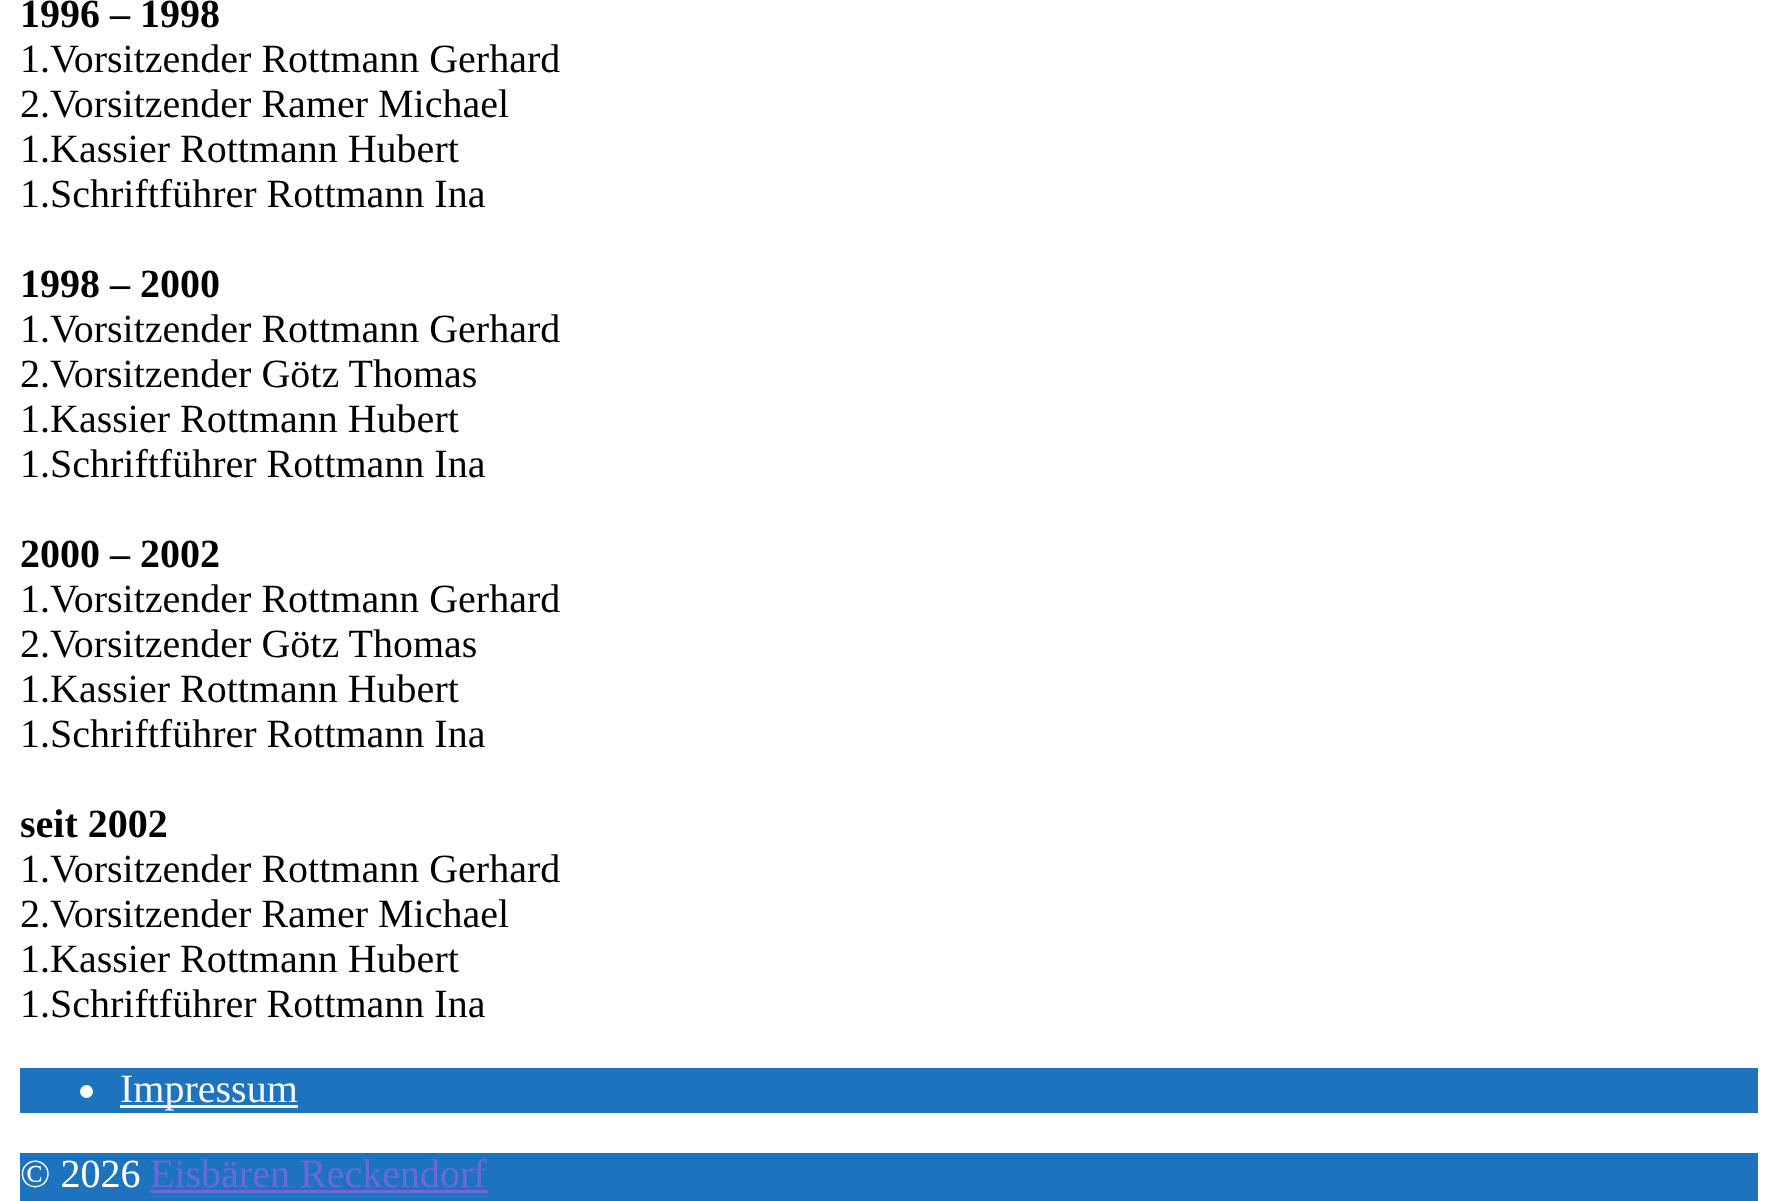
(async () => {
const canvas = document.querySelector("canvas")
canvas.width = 1777
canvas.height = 1201
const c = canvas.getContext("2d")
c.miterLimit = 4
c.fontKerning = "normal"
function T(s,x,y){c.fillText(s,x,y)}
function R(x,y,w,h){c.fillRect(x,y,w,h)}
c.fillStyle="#fff"
R(0,0,1777,1201)
c.font="bold 40px Liberation Serif"
c.fillStyle="#000"
T("1996 – 1998",20,27)
c.font="40px Liberation Serif"
T("1.Vorsitzender Rottmann Gerhard",20,72)
T("2.Vorsitzender Ramer Michael",20,117)
T("1.Kassier Rottmann Hubert",20,162)
T("1.Schriftführer Rottmann Ina",20,207)
c.font="bold 40px Liberation Serif"
T("1998 – 2000",20,297)
c.font="40px Liberation Serif"
T("1.Vorsitzender Rottmann Gerhard",20,342)
T("2.Vorsitzender Götz Thomas",20,387)
T("1.Kassier Rottmann Hubert",20,432)
T("1.Schriftführer Rottmann Ina",20,477)
c.font="bold 40px Liberation Serif"
T("2000 – 2002",20,567)
c.font="40px Liberation Serif"
T("1.Vorsitzender Rottmann Gerhard",20,612)
T("2.Vorsitzender Götz Thomas",20,657)
T("1.Kassier Rottmann Hubert",20,702)
T("1.Schriftführer Rottmann Ina",20,747)
c.font="bold 40px Liberation Serif"
T("seit 2002",20,837)
c.font="40px Liberation Serif"
T("1.Vorsitzender Rottmann Gerhard",20,882)
T("2.Vorsitzender Ramer Michael",20,927)
T("1.Kassier Rottmann Hubert",20,972)
T("1.Schriftführer Rottmann Ina",20,1017)
c.fillStyle="#1e73be"
R(20,1068,1738,45)
c.fillStyle="#fff"
c.beginPath()
c.arc(86.5,1091.5,6.5,0,7)
c.fill()
c.fillStyle="#f6f6fd"
R(120,1105,178,3)
T("Impressum",120,1102)
c.fillStyle="#1e73be"
R(20,1153,1738,48)
c.fillStyle="#fff"
T("© 2026",20,1187)
c.fillStyle="#6d67de"
T("Eisbären Reckendorf",150,1187)
R(150,1190,338,3)
})()
